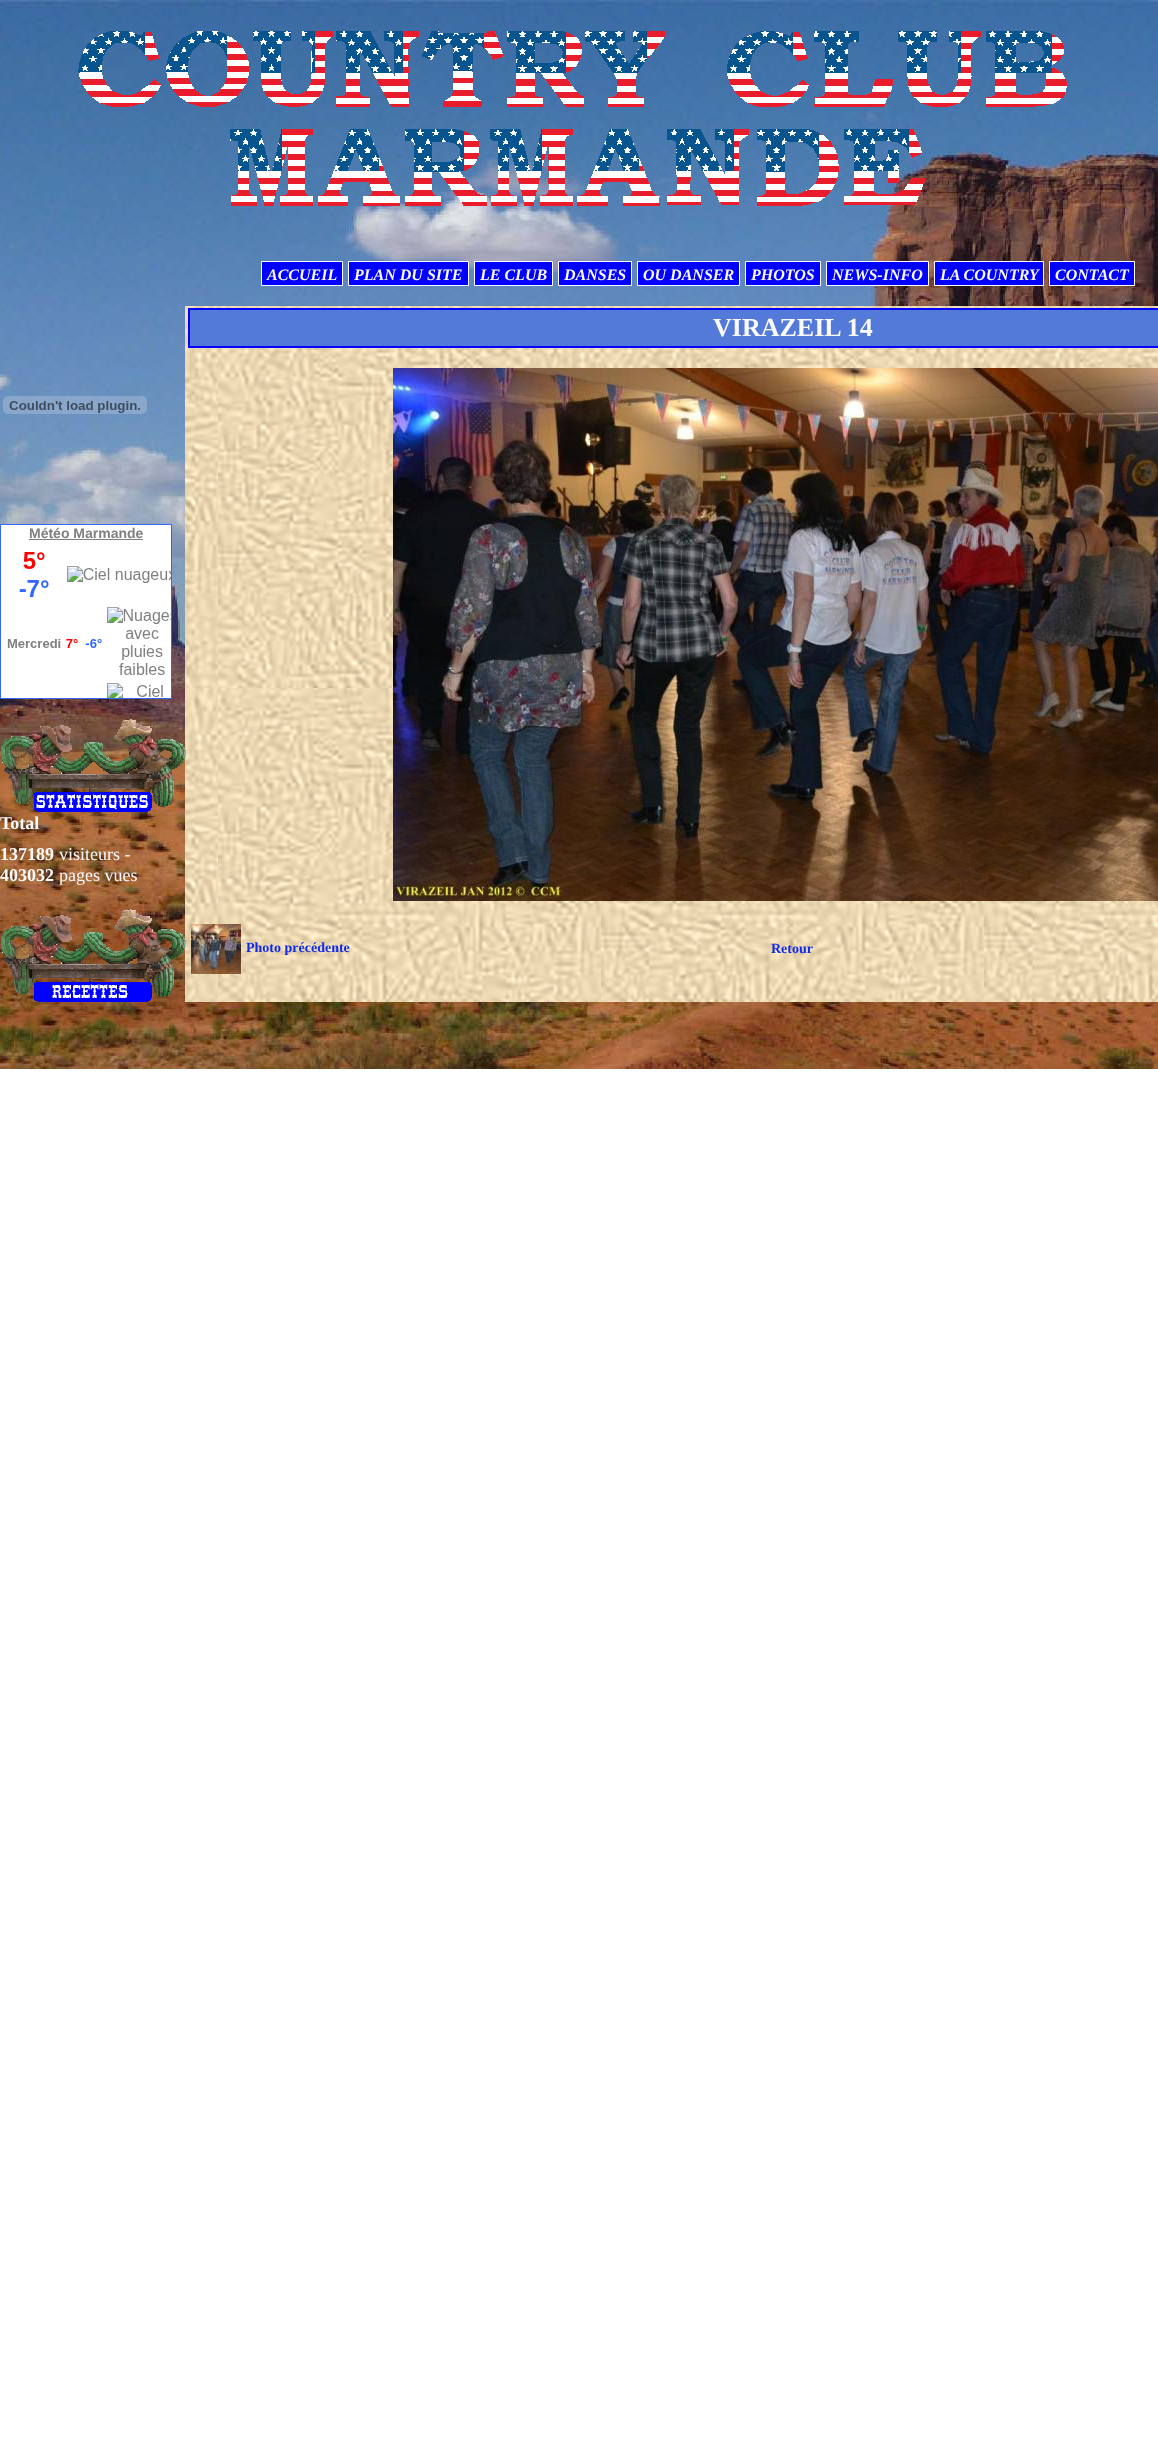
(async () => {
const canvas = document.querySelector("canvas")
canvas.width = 1158
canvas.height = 2454
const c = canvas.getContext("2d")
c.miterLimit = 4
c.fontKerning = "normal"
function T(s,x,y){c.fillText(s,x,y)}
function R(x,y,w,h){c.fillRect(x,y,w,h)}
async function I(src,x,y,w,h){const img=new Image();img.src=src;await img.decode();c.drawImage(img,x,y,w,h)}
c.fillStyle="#fff"
R(0,0,1158,2454)
await I("1.png",0,0,1158,1069)
await I("2.png",78,31,989,175)
c.fillStyle="#00f"
c.beginPath()
c.rect(261.5,261.5,81,24)
c.fill()
c.strokeStyle="#fff"
c.stroke()
c.font="italic bold 16px Liberation Serif"
c.fillStyle="#fafafa"
T("ACCUEIL",267,280)
c.fillStyle="#00f"
c.beginPath()
c.rect(348.5,261.5,120,24)
c.fill()
c.stroke()
c.fillStyle="#fafafa"
T("PLAN DU SITE",354,280)
c.fillStyle="#00f"
c.beginPath()
c.rect(474.5,261.5,78,24)
c.fill()
c.stroke()
c.fillStyle="#fafafa"
T("LE CLUB",480,280)
c.fillStyle="#00f"
c.beginPath()
c.rect(558.5,261.5,73,24)
c.fill()
c.stroke()
c.fillStyle="#fafafa"
T("DANSES",564,280)
c.fillStyle="#00f"
c.beginPath()
c.rect(637.5,261.5,102,24)
c.fill()
c.stroke()
c.fillStyle="#fafafa"
T("OU DANSER",643,280)
c.fillStyle="#00f"
c.beginPath()
c.rect(745.5,261.5,75,24)
c.fill()
c.stroke()
c.fillStyle="#fafafa"
T("PHOTOS",751,280)
c.fillStyle="#00f"
c.beginPath()
c.rect(826.5,261.5,102,24)
c.fill()
c.stroke()
c.fillStyle="#fafafa"
T("NEWS-INFO",832,280)
c.fillStyle="#00f"
c.beginPath()
c.rect(934.5,261.5,109,24)
c.fill()
c.stroke()
c.fillStyle="#fafafa"
T("LA COUNTRY",940,280)
c.fillStyle="#00f"
c.beginPath()
c.rect(1049.5,261.5,85,24)
c.fill()
c.stroke()
c.fillStyle="#fafafa"
T("CONTACT",1055,280)
await I("3.png",3,396,144,18)
c.fillStyle="#fff"
c.beginPath()
c.rect(.5,524.5,171,174)
c.fill()
c.strokeStyle="#36f"
c.stroke()
c.font="bold 14px Liberation Sans"
c.fillStyle="#808080"
T("Météo Marmande",29,538)
R(29,539,114,1)
await I("4.png",7,552,164,146)
await I("7.png",185,306,973,696)
await I("5.png",1,719,185,93)
c.font="bold 18px Liberation Serif"
c.fillStyle="#fafafa"
T("Total",0,829)
T("137189",0,860)
c.font="18px Liberation Serif"
T("visiteurs -",59,860)
c.font="bold 18px Liberation Serif"
T("403032",0,881)
c.font="18px Liberation Serif"
T("pages vues",59,881)
await I("6.png",1,909,185,93)
c.fillStyle="#547ad9"
c.beginPath()
c.rect(189,309,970,38)
c.fill()
c.strokeStyle="#00f"
c.lineWidth=2
c.stroke()
c.font="bold 26px Liberation Serif"
c.fillStyle="#fafafa"
T("VIRAZEIL 14",713,336)
await I("8.png",393,368,765,533)
await I("9.png",191,924,50,50)
c.font="bold 14px Liberation Serif"
c.fillStyle="#0e2beb"
T("Photo précédente",246,952)
T("Retour",771,953)
})()
